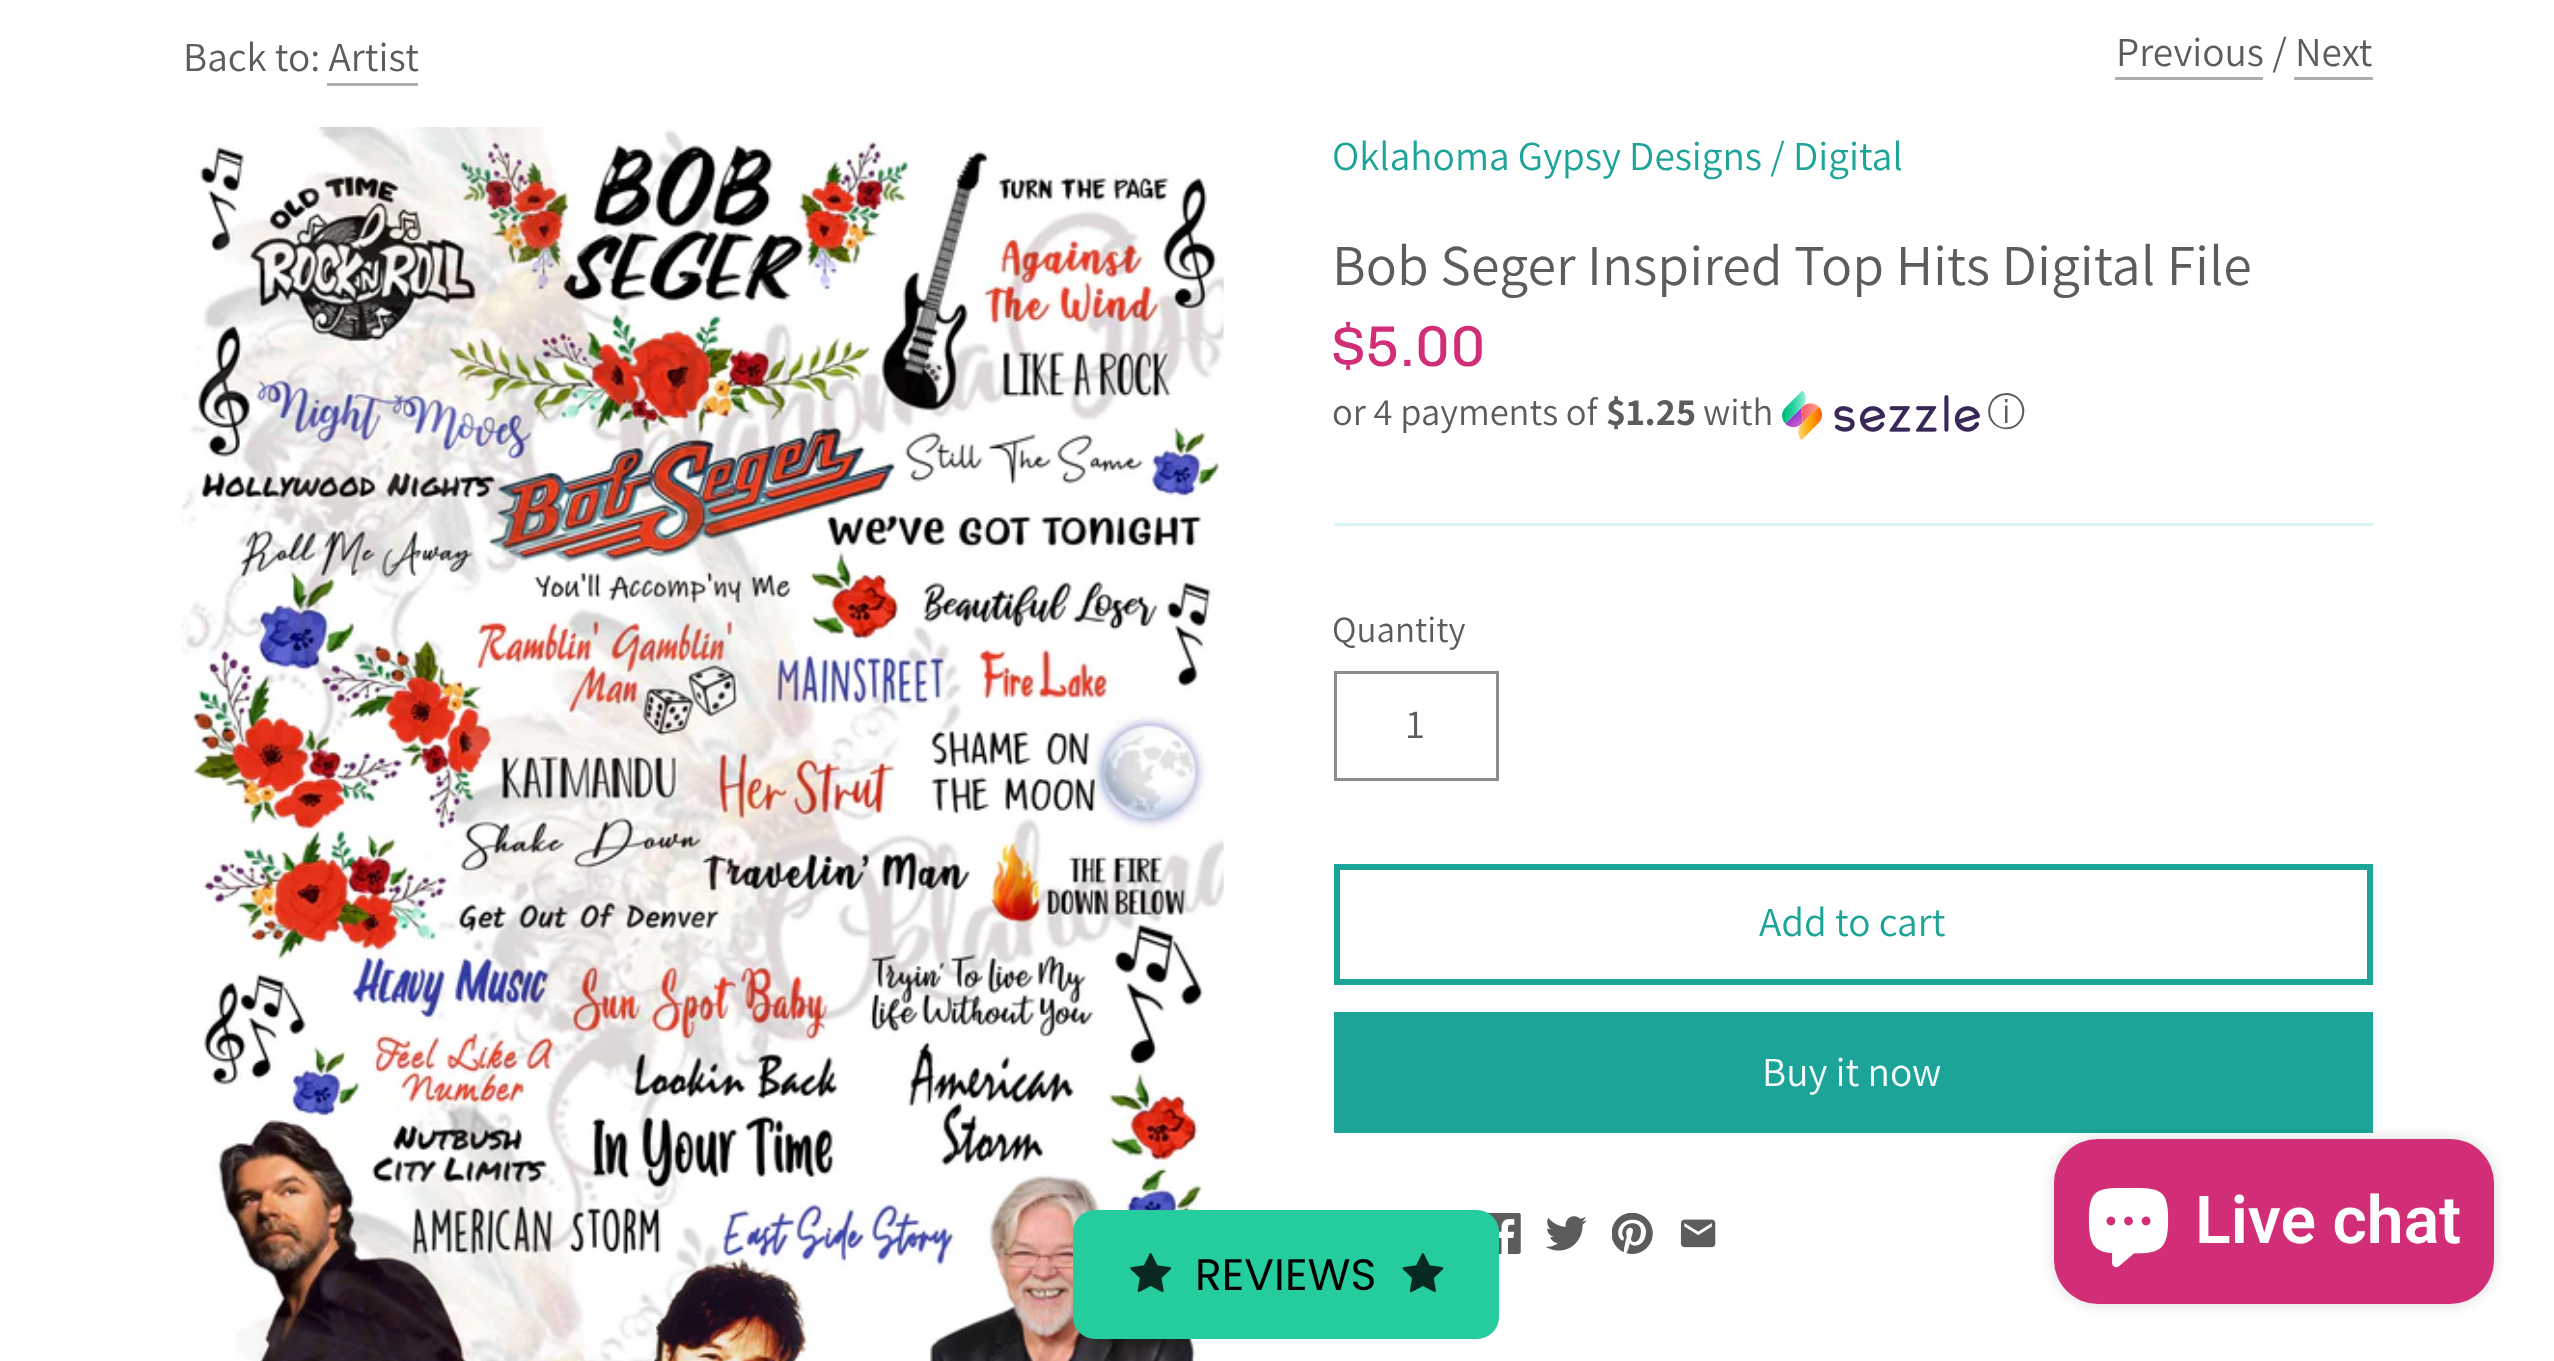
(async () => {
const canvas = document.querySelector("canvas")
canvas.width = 2554
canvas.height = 1361
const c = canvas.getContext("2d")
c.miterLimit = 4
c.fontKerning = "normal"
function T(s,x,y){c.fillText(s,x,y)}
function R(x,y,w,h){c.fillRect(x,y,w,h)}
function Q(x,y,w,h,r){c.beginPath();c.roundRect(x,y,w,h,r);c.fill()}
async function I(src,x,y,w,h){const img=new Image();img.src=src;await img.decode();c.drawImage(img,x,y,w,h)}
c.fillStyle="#fff"
R(0,0,2554,1361)
c.font="41.25px Assistant"
c.fillStyle="#5c5c5f"
T("Back to: Artist",183,71)
c.fillStyle="#aeaeaf"
R(327,83,91,3)
c.fillStyle="#5c5c5f"
T("Previous / Next",2116,66)
c.fillStyle="#aeaeaf"
R(2115,77,148,3)
R(2294,77,79,3)
await I("1.png",181,127,1043,1234)
c.fillStyle="#d8f4f5"
R(1334,523,1039,3)
c.fillStyle="#1ca499"
T("Oklahoma Gypsy Designs / Digital",1332,170)
c.font="57.75px Assistant"
c.fillStyle="#5c5c5f"
T("Bob Seger Inspired Top Hits Digital File",1332,285)
c.font="57.75px Chivo"
c.fillStyle="#d22d77"
T("$5.00",1332,366)
c.font="38.5px Assistant"
c.fillStyle="#5c5c5f"
T("or 4 payments of",1332,425)
c.font="bold 38.5px Assistant"
T("$1.25",1606,425)
c.font="38.5px Assistant"
T("with",1703,425)
await I("2.png",1782,391,198,49)
c.font="500 38.5px WenQuanYi Zen Hei"
T("ⓘ",1987,425)
c.font="37px Assistant"
T("Quantity",1332,642)
c.strokeStyle="#8c8c8f"
c.lineWidth=3
c.strokeRect(1335.5,672.5,162,107)
c.font="41.25px Assistant"
T("1",1406,738)
c.strokeStyle="#1ca499"
c.lineWidth=6
c.strokeRect(1337,867,1033,115)
c.fillStyle="#1ca499"
T("Add to cart",1759,936)
R(1334,1012,1039,121)
c.fillStyle="#f4fbfc"
T("Buy it now",1762,1086)
await I("3.png",1488,1213,33,41)
await I("4.png",1546,1216,41,35)
await I("5.png",1612,1213,41,41)
await I("6.png",1680,1219,36,29)
c.fillStyle="#00000026"
c.filter="blur(7px)"
c.beginPath()
c.roundRect(2054,1139,440,165,44)
c.fill()
c.filter="none"
c.fillStyle="#d22d77"
Q(2054,1139,440,165,44)
await I("7.png",2088,1188,81,80)
c.font="600 66px Roboto"
c.fillStyle="#fff"
T("Live chat",2195,1243)
c.fillStyle="#25cc9e"
Q(1073,1210,426,129,22)
await I("8.png",1130,1253,42,40)
c.font="44px Poppins"
c.fillStyle="#000"
T("REVIEWS",1195,1290)
await I("9.png",1402,1253,42,40)
})()
